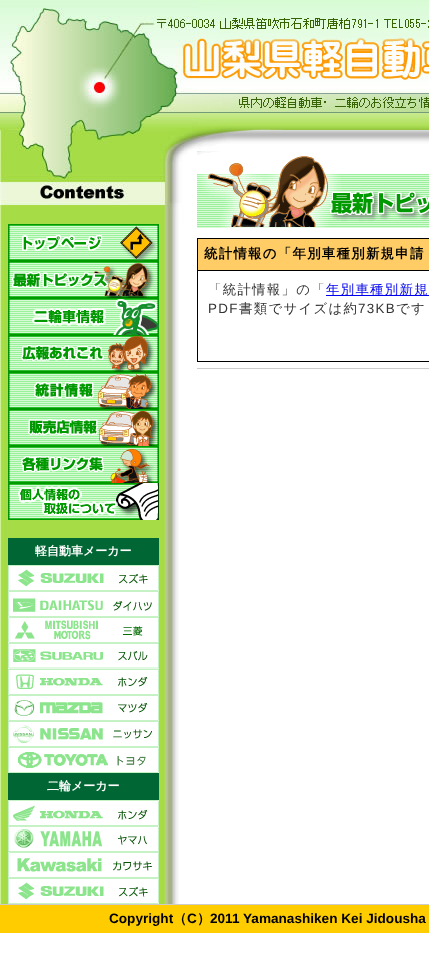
(async () => {
const canvas = document.querySelector("canvas")
canvas.width = 429
canvas.height = 959
const c = canvas.getContext("2d")
c.miterLimit = 4
c.fontKerning = "normal"
function T(s,x,y){c.fillText(s,x,y)}
function R(x,y,w,h){c.fillRect(x,y,w,h)}
async function I(src,x,y,w,h){const img=new Image();img.src=src;await img.decode();c.drawImage(img,x,y,w,h)}
c.fillStyle="#fff"
R(0,0,429,959)
await I("1.png",0,223,179,681)
await I("2.png",0,0,429,151)
await I("3.png",197,151,232,77)
c.strokeStyle="#000"
c.strokeRect(197.5,238.5,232,123)
c.fillStyle="#fc6"
R(198,239,231,31)
c.letterSpacing="1.3px"
c.font="bold 13.4px WenQuanYi Zen Hei"
c.fillStyle="#000"
T("統計情報の「年別車種別新規申請",204,258)
R(198,270,231,1)
c.font="500 13.4px WenQuanYi Zen Hei"
c.fillStyle="#333"
T("「統計情報」の「",208,294)
c.fillStyle="#00e"
R(326,295,103,1)
T("年別車種別新規",326,294)
c.font="13.4px Liberation Sans"
c.fillStyle="#333"
T("PDF",208,313)
c.font="500 13.4px WenQuanYi Zen Hei"
T("書類でサイズは約",239,313)
c.font="13.4px Liberation Sans"
T("73KB",358,313)
c.font="500 13.4px WenQuanYi Zen Hei"
T("です",396,313)
c.fillStyle="#ccc"
R(197,368,232,1)
await I("4.png",0,151,188,72)
await I("5.png",8,224,151,37)
await I("6.png",8,261,151,37)
await I("7.png",8,298,151,37)
await I("8.png",8,335,151,37)
await I("9.png",8,372,151,37)
await I("10.png",8,409,151,37)
await I("11.png",8,446,151,37)
await I("12.png",8,483,151,37)
c.fillStyle="#063"
R(8,538,151,27)
c.letterSpacing="0px"
c.font="bold 12px WenQuanYi Zen Hei"
c.fillStyle="#fff"
T("軽自動車メーカー",35,555)
await I("13.png",8,565,151,26)
await I("14.png",8,591,151,26)
await I("15.png",8,617,151,26)
await I("16.png",8,643,151,26)
await I("17.png",8,669,151,26)
await I("18.png",8,695,151,26)
await I("19.png",8,721,151,26)
await I("20.png",8,747,151,26)
c.fillStyle="#063"
R(8,773,151,27)
c.fillStyle="#fff"
T("二輪メーカー",47,790)
await I("21.png",8,800,151,26)
await I("22.png",8,826,151,26)
await I("23.png",8,852,151,26)
await I("13.png",8,878,151,26)
c.fillStyle="#fc0"
R(0,905,429,28)
c.fillStyle="#ccc"
R(0,904,429,1)
c.font="bold 13.6px Liberation Sans"
c.fillStyle="#000"
T("Copyright",109,923)
c.font="bold 13.6px WenQuanYi Zen Hei"
T("（",173,923)
c.font="bold 13.6px Liberation Sans"
T("C",187,923)
c.font="bold 13.6px WenQuanYi Zen Hei"
T("）",197,923)
c.font="bold 13.6px Liberation Sans"
T("2011 Yamanashiken Kei Jidousha",210,923)
})()
